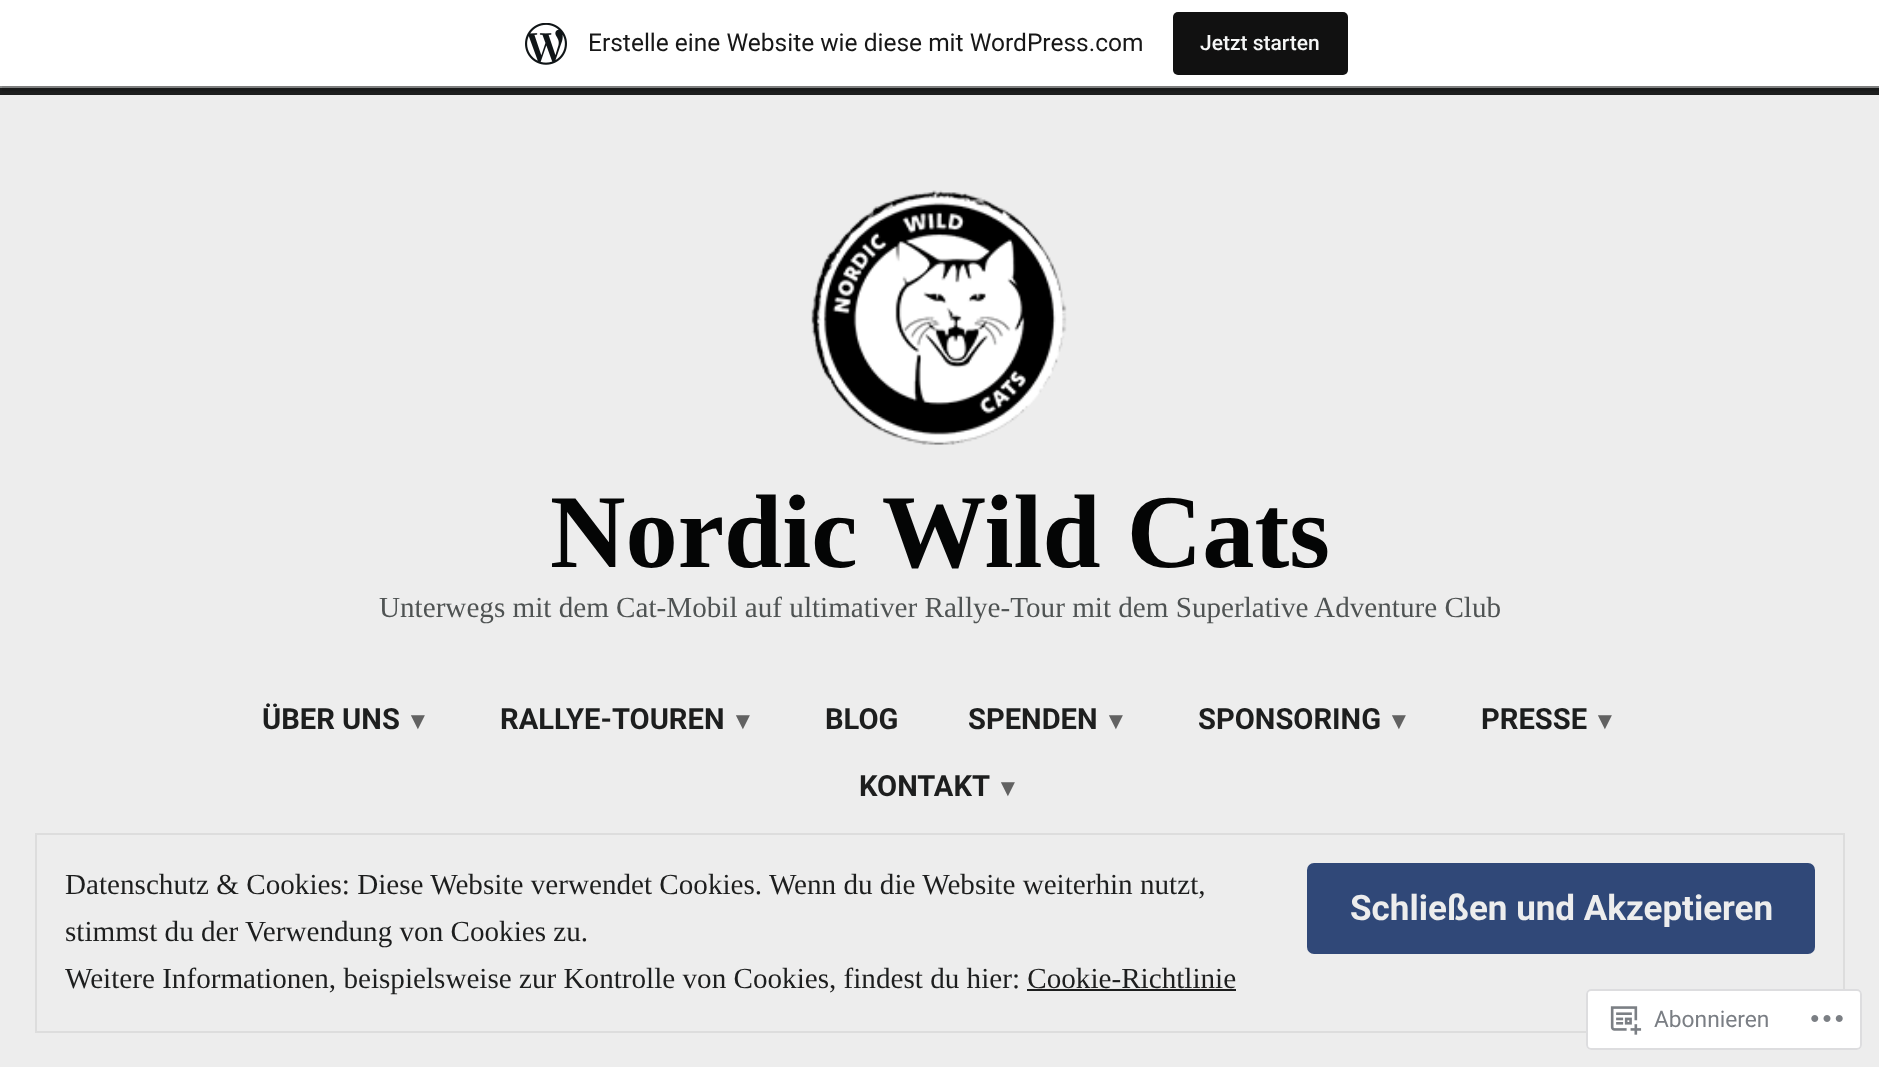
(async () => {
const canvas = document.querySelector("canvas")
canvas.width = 1879
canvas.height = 1067
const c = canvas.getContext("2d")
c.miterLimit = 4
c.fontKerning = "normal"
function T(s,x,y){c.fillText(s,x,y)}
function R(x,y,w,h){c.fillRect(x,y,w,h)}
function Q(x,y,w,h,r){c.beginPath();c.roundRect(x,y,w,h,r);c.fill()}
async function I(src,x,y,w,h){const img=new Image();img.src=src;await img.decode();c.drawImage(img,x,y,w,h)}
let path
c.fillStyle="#ededed"
R(0,0,1879,1067)
c.fillStyle="#1d1e1e"
R(0,88,1879,7)
c.fillStyle="#8e8f8f"
R(0,86,1879,2)
c.fillStyle="#0000000d"
c.filter="blur(2px)"
c.beginPath()
c.rect(0,2,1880,86)
c.fill()
c.filter="none"
c.fillStyle="#00000014"
path = new Path2D("M2 86v5h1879v-86h-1v81z")
c.fill(path)
c.fillStyle="#fff"
R(0,0,1879,86)
await I("1.png",525,23,42,42)
c.font="24.5px Roboto"
c.fillStyle="#171717"
T("Erstelle eine Website wie diese mit WordPress.com",588,51)
c.fillStyle="#111"
Q(1173,12,175,63,5)
c.font="500 21px Roboto"
c.fillStyle="#f6f7f7"
T("Jetzt starten",1200,50)
await I("2.png",811,190,256,255)
c.font="bold 104.5px Liberation Serif"
c.fillStyle="#040505"
T("Nordic Wild Cats",550,567)
c.font="29.15px Liberation Serif"
c.fillStyle="#4f5353"
T("Unterwegs mit dem Cat-Mobil auf ultimativer Rallye-Tour mit dem Superlative Adventure Club",379,617)
c.font="bold 29.15px Roboto"
c.fillStyle="#1d1e1e"
T("ÜBER UNS",262,729)
c.font="bold 24px Liberation Sans"
c.fillStyle="#626262"
T("▼",406,729)
c.font="bold 29.15px Roboto"
c.fillStyle="#1d1e1e"
T("RALLYE-TOUREN",500,729)
c.font="bold 24px Liberation Sans"
c.fillStyle="#626262"
T("▼",731,729)
c.font="bold 29.15px Roboto"
c.fillStyle="#1d1e1e"
T("BLOG",825,729)
T("SPENDEN",968,729)
c.font="bold 24px Liberation Sans"
c.fillStyle="#626262"
T("▼",1104,729)
c.font="bold 29.15px Roboto"
c.fillStyle="#1d1e1e"
T("SPONSORING",1198,729)
c.font="bold 24px Liberation Sans"
c.fillStyle="#626262"
T("▼",1387,729)
c.font="bold 29.15px Roboto"
c.fillStyle="#1d1e1e"
T("PRESSE",1481,729)
c.font="bold 24px Liberation Sans"
c.fillStyle="#626262"
T("▼",1593,729)
c.font="bold 29.15px Roboto"
c.fillStyle="#1d1e1e"
T("KONTAKT",859,796)
c.font="bold 24px Liberation Sans"
c.fillStyle="#626262"
T("▼",996,796)
c.strokeStyle="#ddd"
c.lineWidth=2
c.strokeRect(36,834,1808,198)
c.font="29.15px Liberation Serif"
c.fillStyle="#1d1e1e"
T("Datenschutz & Cookies: Diese Website verwendet Cookies. Wenn du die Website weiterhin nutzt,",65,894)
c.fillStyle="#304878"
Q(1307,863,508,91,7)
c.font="bold 35px Roboto"
c.fillStyle="#ededed"
T("Schließen und Akzeptieren",1350,920)
c.font="29.15px Liberation Serif"
c.fillStyle="#1d1e1e"
T("stimmst du der Verwendung von Cookies zu.",65,941)
T("Weitere Informationen, beispielsweise zur Kontrolle von Cookies, findest du hier: Cookie-Richtlinie",65,988)
R(1027,989,209,2)
c.fillStyle="#fffffffa"
Q(1586,989,276,61,5)
c.beginPath()
c.roundRect(1587,990,274,59,4)
c.strokeStyle="#dcdcdefa"
c.stroke()
await I("3.png",1610,1006,32,29)
c.font="22.75px Roboto"
c.fillStyle="#7a7e84"
T("Abonnieren",1654,1027)
await I("4.png",1811,1015,32,7)
})()
